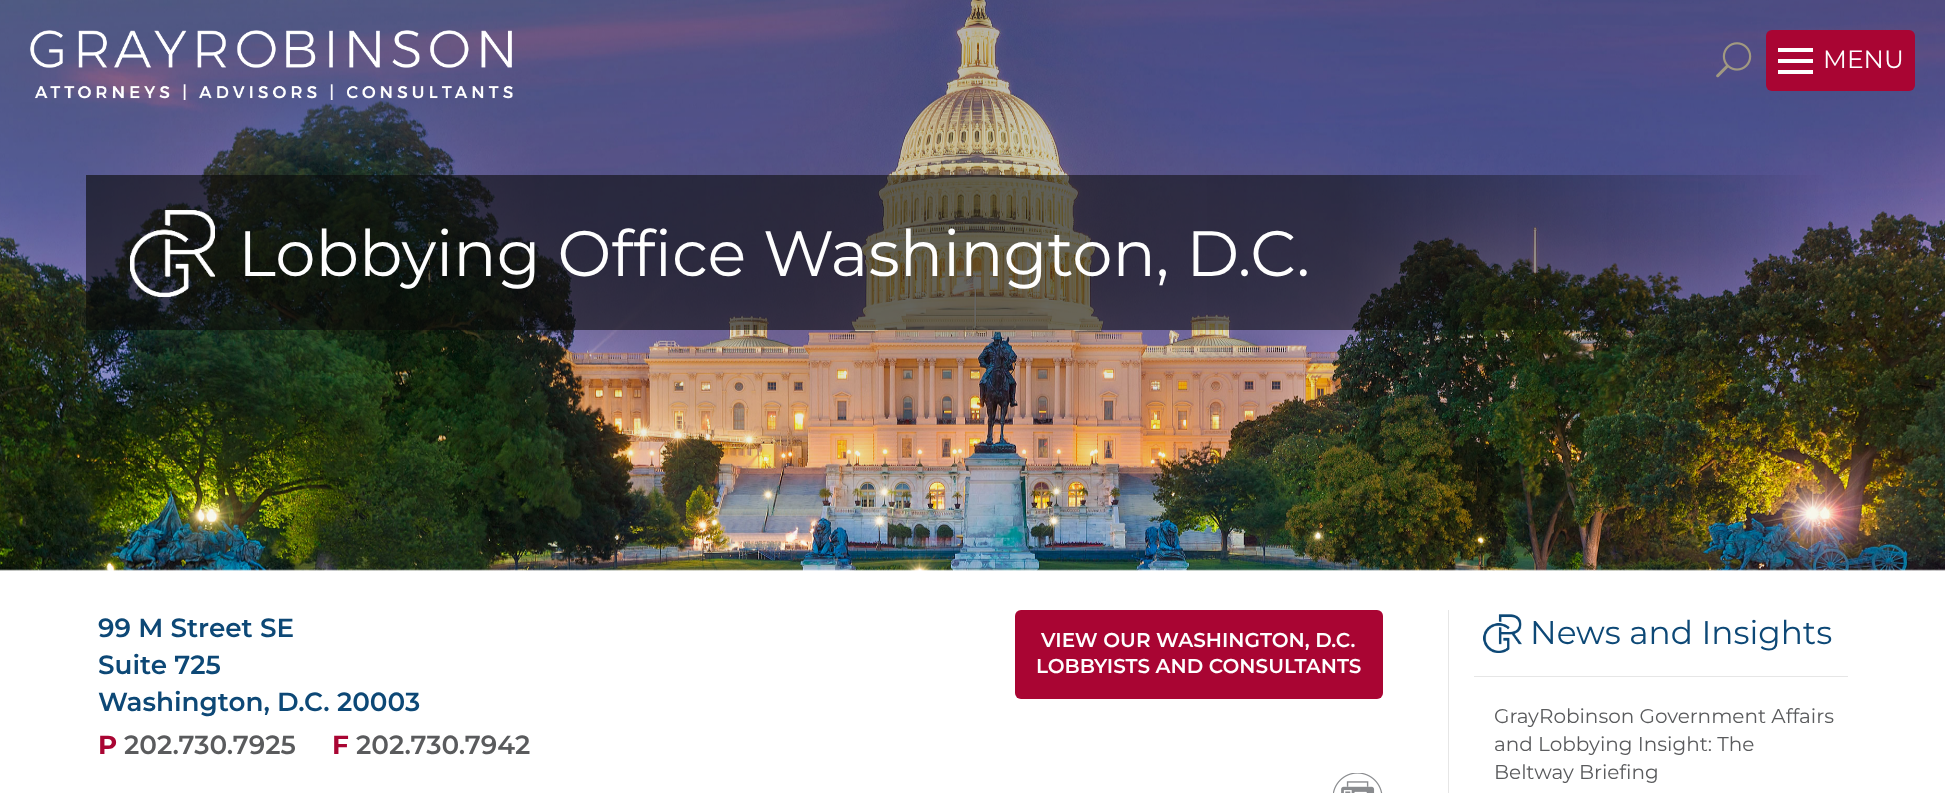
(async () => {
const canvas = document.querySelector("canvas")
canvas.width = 1945
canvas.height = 793
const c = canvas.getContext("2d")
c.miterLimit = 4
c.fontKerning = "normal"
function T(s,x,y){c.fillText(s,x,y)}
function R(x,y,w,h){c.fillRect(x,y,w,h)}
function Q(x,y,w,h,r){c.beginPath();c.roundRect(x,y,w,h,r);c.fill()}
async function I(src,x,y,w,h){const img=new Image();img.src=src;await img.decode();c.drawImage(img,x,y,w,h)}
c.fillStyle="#fff"
R(0,0,1945,793)
await I("3.png",0,0,1945,571)
await I("1.png",30,30,483,70)
await I("2.png",1716,42,36,36)
c.fillStyle="#a90533"
Q(1766,30,149,61,6)
c.fillStyle="#fefefe"
R(1778,70,35,4)
R(1778,59,35,4)
R(1778,48,35,4)
c.font="25px Montserrat"
T("MENU",1823,68)
await I("4.png",130,210,85,88)
c.font="64.1px Montserrat"
T("Lobbying Office Washington, D.C.",238,276)
c.font="600 26.25px Montserrat"
c.fillStyle="#0d4876"
T("99 M Street SE",98,637)
T("Suite 725",98,674)
T("Washington, D.C. 20003",98,711)
c.font="bold 26.25px Montserrat"
c.fillStyle="#a90533"
T("P",98,754)
c.font="600 26.25px Montserrat"
c.fillStyle="#5a5b5d"
T("202.730.7925",124,754)
c.font="bold 26.25px Montserrat"
c.fillStyle="#a90533"
T("F",332,754)
c.font="600 26.25px Montserrat"
c.fillStyle="#5a5b5d"
T("202.730.7942",356,754)
c.fillStyle="#a90533"
Q(1015,610,368,89,6)
c.font="600 20px Montserrat"
c.fillStyle="#fefefe"
T("VIEW OUR WASHINGTON, D.C.",1041,647)
T("LOBBYISTS AND CONSULTANTS",1036,673)
await I("5.png",1333,773,50,20)
c.fillStyle="#e6e6e6"
R(1448,610,1,183)
R(1474,676,374,1)
await I("6.png",1483,614,39,39)
c.font="32.75px Montserrat"
c.fillStyle="#0d4876"
T("News and Insights",1530,644)
c.font="20px Montserrat"
c.fillStyle="#5a5b5d"
T("GrayRobinson Government Affairs",1494,723)
T("and Lobbying Insight: The",1494,751)
T("Beltway Briefing",1494,779)
})()
